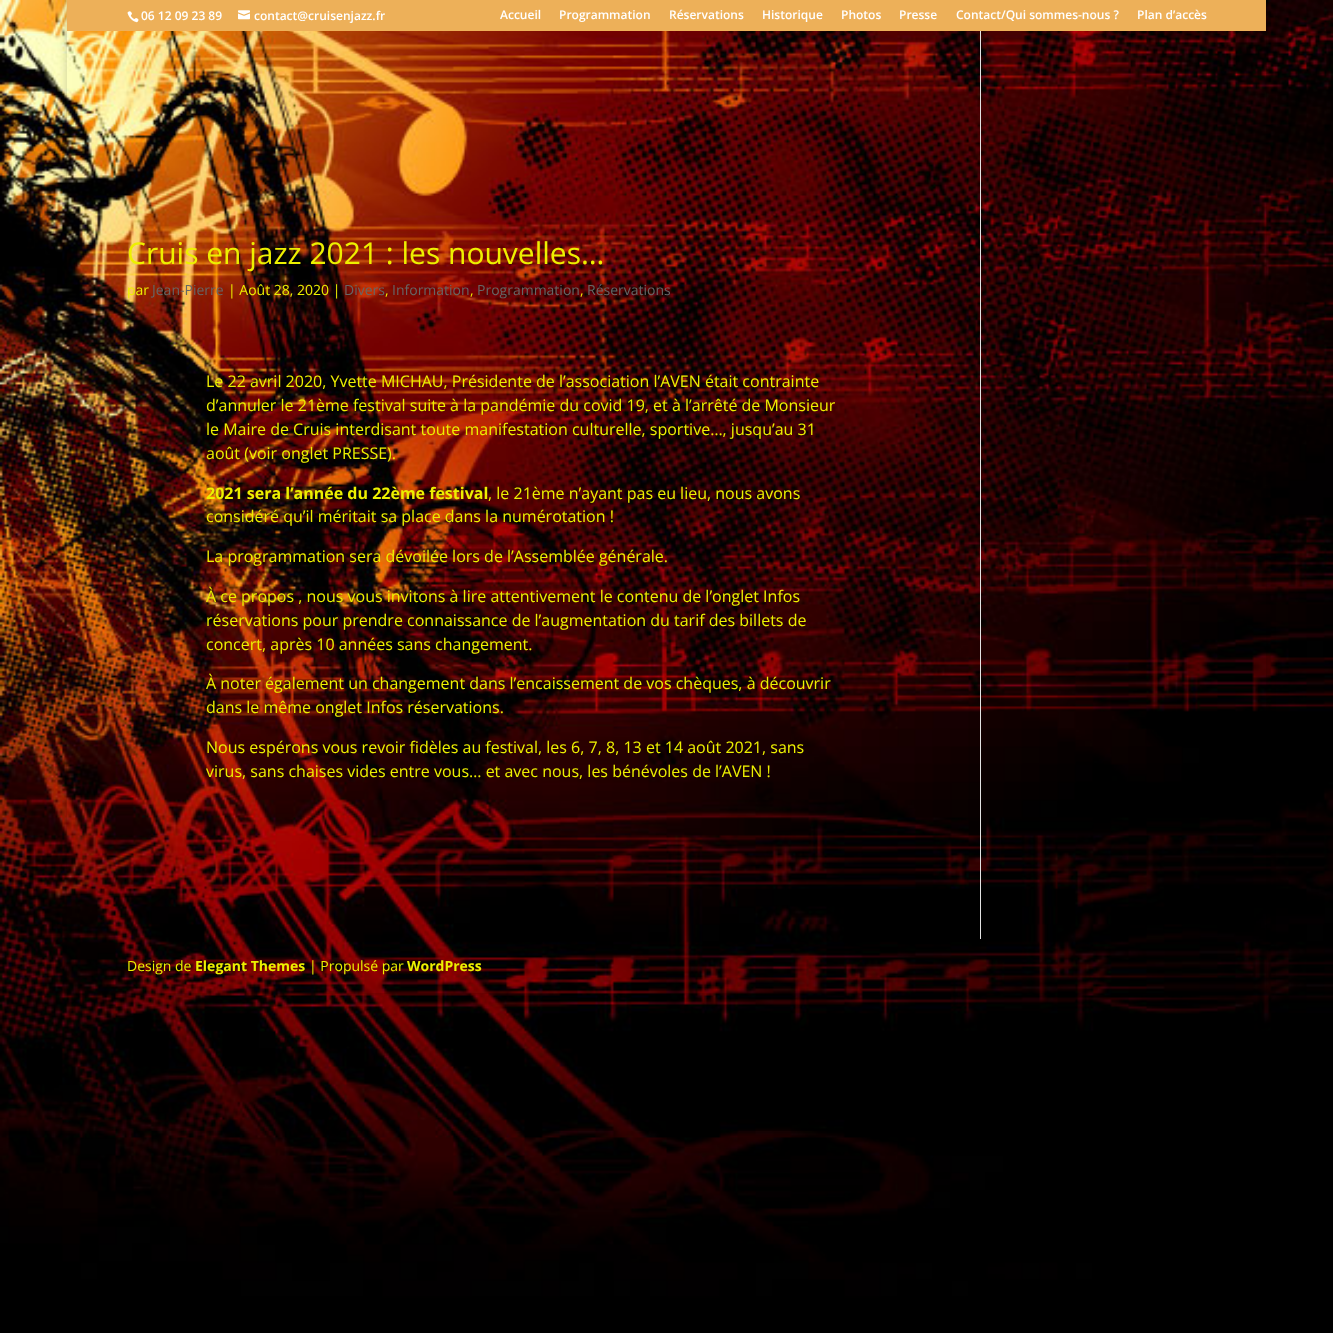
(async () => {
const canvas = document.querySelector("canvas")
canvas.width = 1333
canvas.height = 1333
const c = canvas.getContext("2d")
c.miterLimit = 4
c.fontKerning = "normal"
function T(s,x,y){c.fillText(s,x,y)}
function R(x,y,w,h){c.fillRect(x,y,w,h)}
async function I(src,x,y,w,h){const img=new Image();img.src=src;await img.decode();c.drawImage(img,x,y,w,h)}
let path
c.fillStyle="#fff"
R(0,0,1333,1333)
await I("1.png",0,0,1333,1333)
c.save()
path = new Path2D("M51 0h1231v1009h-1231zm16 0h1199v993h-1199z")
c.clip(path,"evenodd")
c.fillStyle="#00000033"
c.filter="blur(5px)"
c.beginPath()
c.rect(67,0,1199,993)
c.fill()
c.filter="none"
c.restore()
c.fillStyle="#edb059"
R(67,0,1199,31)
await I("2.png",127,11,12,12)
c.font="600 12px Open Sans"
c.fillStyle="#fff"
T("06 12 09 23 89",141,20)
await I("3.png",238,10,12,10)
T("contact@cruisenjazz.fr",254,20)
T("Accueil",500,19)
T("Programmation",559,19)
T("Réservations",669,19)
T("Historique",762,19)
T("Photos",841,19)
T("Presse",899,19)
T("Contact/Qui sommes-nous ?",956,19)
T("Plan d’accès",1137,19)
c.font="30px Open Sans"
c.fillStyle="#edf000"
T("Cruis en jazz 2021 : les nouvelles…",127,264)
c.font="14px Open Sans"
T("par",127,295)
c.fillStyle="#666"
T("Jean-Pierre",152,295)
c.fillStyle="#edf000"
T("| Août 28, 2020 |",228,295)
c.fillStyle="#666"
T("Divers",344,295)
c.fillStyle="#edf000"
T(",",385,295)
c.fillStyle="#666"
T("Information",392,295)
c.fillStyle="#edf000"
T(",",470,295)
c.fillStyle="#666"
T("Programmation",477,295)
c.fillStyle="#edf000"
T(",",580,295)
c.fillStyle="#666"
T("Réservations",587,295)
c.font="16px Open Sans"
c.fillStyle="#edf000"
T("Le 22 avril 2020, Yvette MICHAU, Présidente de l’association l’AVEN était contrainte",206,387)
T("d’annuler le 21ème festival suite à la pandémie du covid 19, et à l’arrêté de Monsieur",206,411)
T("le Maire de Cruis interdisant toute manifestation culturelle, sportive…, jusqu’au 31",206,435)
T("août (voir onglet PRESSE).",206,459)
c.font="bold 16px Open Sans"
T("2021 sera l’année du 22ème festival",206,499)
c.font="16px Open Sans"
T(", le 21ème n’ayant pas eu lieu, nous avons",488,499)
T("considéré qu’il méritait sa place dans la numérotation !",206,522)
T("La programmation sera dévoilée lors de l’Assemblée générale.",206,562)
T("À ce propos , nous vous invitons à lire attentivement le contenu de l’onglet Infos",206,602)
T("réservations pour prendre connaissance de l’augmentation du tarif des billets de",206,626)
T("concert, après 10 années sans changement.",206,650)
T("À noter également un changement dans l’encaissement de vos chèques, à découvrir",206,689)
T("dans le même onglet Infos réservations.",206,713)
T("Nous espérons vous revoir fidèles au festival, les 6, 7, 8, 13 et 14 août 2021, sans",206,753)
T("virus, sans chaises vides entre vous… et avec nous, les bénévoles de l’AVEN !",206,777)
c.fillStyle="#e2e2e2"
R(980,31,1,908)
c.font="14px Open Sans"
c.fillStyle="#edf000"
T("Design de",127,971)
c.font="bold 14px Open Sans"
T("Elegant Themes",195,971)
c.font="14px Open Sans"
T("| Propulsé par",309,971)
c.font="bold 14px Open Sans"
T("WordPress",407,971)
})()
